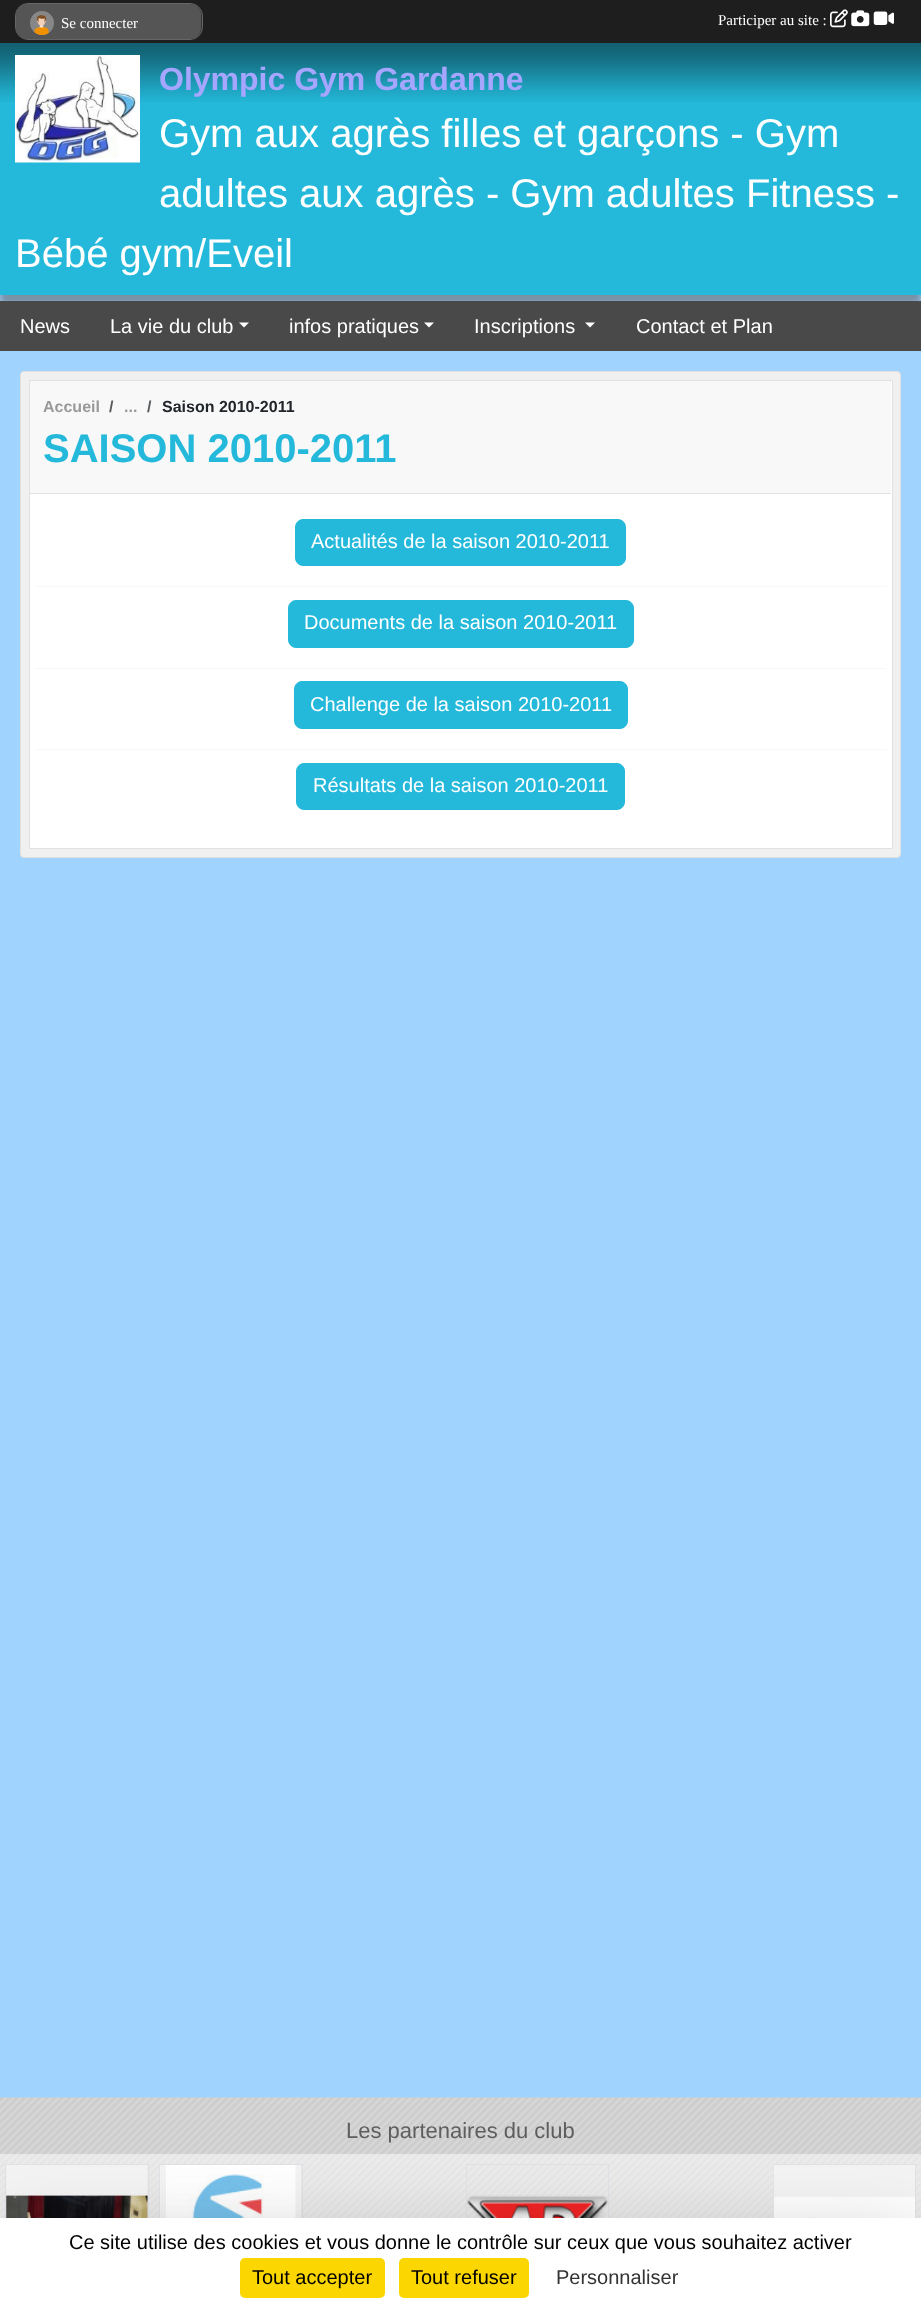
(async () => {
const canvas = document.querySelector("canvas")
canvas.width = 921
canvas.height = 2309
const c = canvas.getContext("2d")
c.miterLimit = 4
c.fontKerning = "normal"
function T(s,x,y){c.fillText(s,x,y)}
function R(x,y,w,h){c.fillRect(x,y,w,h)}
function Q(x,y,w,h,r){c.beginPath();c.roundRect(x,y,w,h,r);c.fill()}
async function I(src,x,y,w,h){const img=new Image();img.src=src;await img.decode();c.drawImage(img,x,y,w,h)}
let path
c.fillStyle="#a1d3ff"
R(0,0,921,2309)
c.fillStyle="#50505080"
c.filter="blur(3px)"
c.beginPath()
c.rect(0,51,921,253)
c.fill()
c.filter="none"
c.fillStyle="#1e1e1e"
R(0,0,921,43)
c.fillStyle="#333"
c.beginPath()
c.roundRect(15.5,3.5,187,36,12.5)
c.fill()
c.strokeStyle="#666"
c.stroke()
c.fillStyle="#555"
Q(16,4,185,35,11)
await I("1.png",30,11,24,24)
c.font="15px Liberation Serif"
c.fillStyle="#fff"
T("Se connecter",61,28)
T("Participer au site :",718,25)
await I("2.png",830,9,18,19)
await I("3.png",851,10,19,17)
await I("4.png",873,11,21,14)
c.fillStyle="#24b9da"
R(0,43,921,252)
await I("5.png",0,43,921,59)
await I("6.png",15,55,125,108)
c.font="bold 32px Liberation Sans"
c.fillStyle="#a6a6ff"
T("Olympic Gym Gardanne",159,90)
c.font="40px Liberation Sans"
c.fillStyle="#fff"
T("Gym aux agrès filles et garçons - Gym",159,147)
T("adultes aux agrès - Gym adultes Fitness -",159,207)
T("Bébé gym/Eveil",15,267)
c.fillStyle="#494949"
R(0,301,921,50)
c.font="20px Liberation Sans"
c.fillStyle="#fff"
T("News",20,333)
T("La vie du club",110,333)
path = new Path2D("M239 322.5h10l-5 5z")
c.fill(path)
T("infos pratiques",289,333)
path = new Path2D("M424 322.5h10l-5 5z")
c.fill(path)
T("Inscriptions",474,333)
path = new Path2D("M585 322.5h10l-5 5z")
c.fill(path)
T("Contact et Plan",636,333)
c.fillStyle="#f0f0f0"
c.beginPath()
c.roundRect(20.5,371.5,880,486,3.5)
c.fill()
c.strokeStyle="#e1e1e1"
c.stroke()
c.fillStyle="#fff"
c.beginPath()
c.rect(29.5,380.5,863,468)
c.fill()
c.stroke()
c.fillStyle="#f8f8f8"
R(30,381,861,112)
c.fillStyle="#e1e1e1"
R(30,493,861,1)
c.font="bold 16px Liberation Sans"
c.fillStyle="#999"
T("Accueil",43,412)
c.fillStyle="#575a5d"
T("/",109,412)
c.fillStyle="#999"
T("...",124,412)
c.fillStyle="#575a5d"
T("/",147,412)
c.fillStyle="#212529"
T("Saison 2010-2011",162,412)
c.font="bold 40px Liberation Sans"
c.fillStyle="#24b9da"
T("SAISON 2010-2011",43,462)
c.beginPath()
c.roundRect(295.5,519.5,330,46,7.5)
c.fill()
c.strokeStyle="#24b9da"
c.stroke()
c.font="20px Liberation Sans"
c.fillStyle="#fff"
T("Actualités de la saison 2010-2011",311,548)
c.fillStyle="#f8f8f8"
R(35,586,851,1)
c.fillStyle="#24b9da"
c.beginPath()
c.roundRect(288.5,600.5,345,47,7.5)
c.fill()
c.stroke()
c.fillStyle="#fff"
T("Documents de la saison 2010-2011",304,629)
c.fillStyle="#f8f8f8"
R(35,668,851,1)
c.fillStyle="#24b9da"
c.beginPath()
c.roundRect(294.5,681.5,333,47,7.5)
c.fill()
c.stroke()
c.fillStyle="#fff"
T("Challenge de la saison 2010-2011",310,711)
c.fillStyle="#f8f8f8"
R(35,749,851,1)
c.fillStyle="#24b9da"
c.beginPath()
c.roundRect(296.5,763.5,328,46,7.5)
c.fill()
c.stroke()
c.fillStyle="#fff"
T("Résultats de la saison 2010-2011",313,792)
await I("7.png",0,2097,921,121)
c.font="22px Liberation Sans"
c.fillStyle="#5e5e5e"
T("Les partenaires du club",346,2138)
c.fillStyle="#ffffff80"
R(0,2154,154,64)
c.strokeStyle="#dee2e6"
c.strokeRect(5.5,2164.5,143,143)
await I("8.png",6,2165,142,53)
R(154,2154,154,64)
c.strokeRect(159.5,2164.5,143,143)
await I("9.png",160,2165,141,53)
R(308,2154,153,64)
R(461,2154,153,64)
c.strokeRect(466.5,2164.5,142,143)
await I("10.png",467,2195,141,23)
R(614,2154,154,64)
R(768,2154,153,64)
c.strokeRect(773.5,2164.5,142,143)
await I("11.png",773,2165,142,53)
c.fillStyle="#00000040"
c.filter="blur(37.5px)"
c.beginPath()
c.rect(0,2243,921,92)
c.fill()
c.filter="none"
c.fillStyle="#fff"
R(0,2218,921,91)
c.font="20px Liberation Sans"
c.fillStyle="#000"
T("Ce site utilise des cookies et vous donne le contrôle sur ceux que vous souhaitez activer",69,2249)
c.fillStyle="#fbd600"
Q(240,2258,145,40,5)
c.fillStyle="#000"
T("Tout accepter",252,2284)
c.fillStyle="#fbd600"
Q(399,2258,130,40,5)
c.fillStyle="#000"
T("Tout refuser",411,2284)
c.fillStyle="#333"
T("Personnaliser",556,2284)
})()
